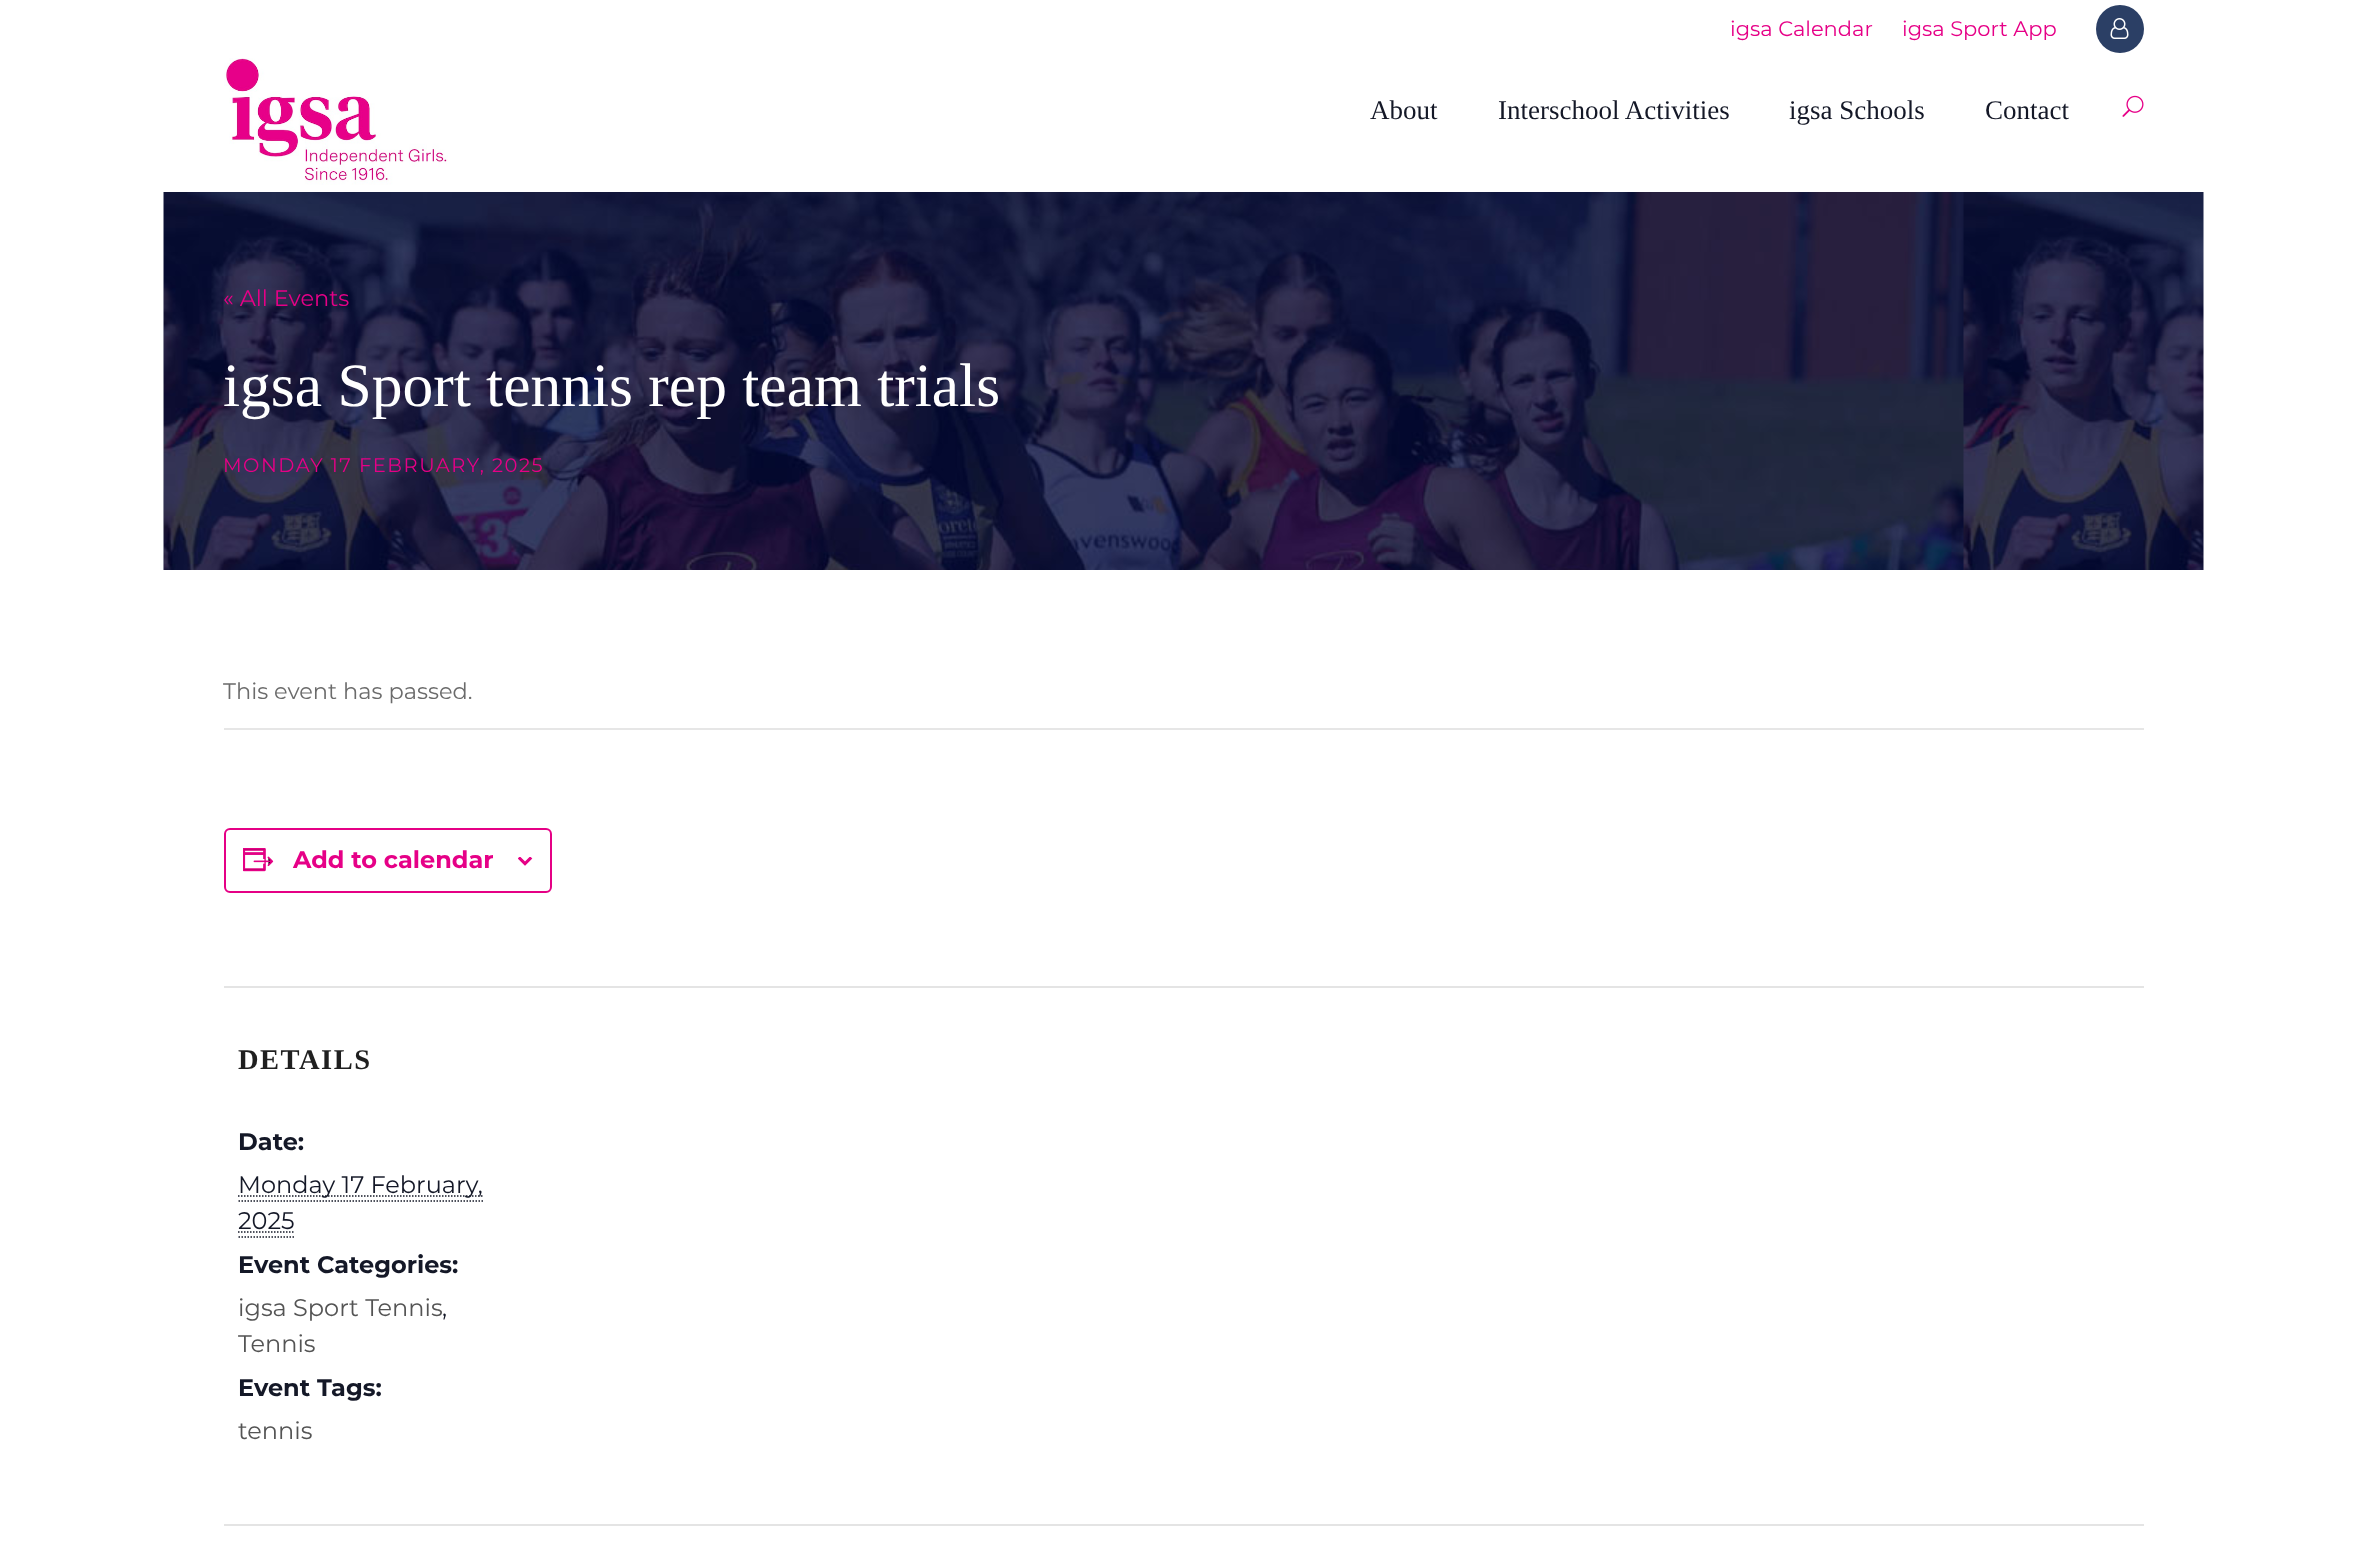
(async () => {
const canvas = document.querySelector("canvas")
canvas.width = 2365
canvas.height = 1544
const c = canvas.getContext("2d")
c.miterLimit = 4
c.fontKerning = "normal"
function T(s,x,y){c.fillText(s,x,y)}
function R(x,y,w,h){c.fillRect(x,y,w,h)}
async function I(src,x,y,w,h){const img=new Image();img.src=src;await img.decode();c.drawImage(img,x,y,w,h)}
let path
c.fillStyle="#fff"
R(0,0,2365,1544)
c.font="21px Montserrat"
c.fillStyle="#e60087"
T("igsa Calendar",1730,36)
T("igsa Sport App",1902,36)
c.fillStyle="#2b3f65"
c.beginPath()
c.arc(2120,29,24,0,7)
c.fill()
await I("1.png",2110,18,19,21)
await I("2.png",224,58,224,127)
c.font="27px Liberation Serif"
c.fillStyle="#141827"
T("About",1370,119)
T("Interschool Activities",1498,119)
T("igsa Schools",1789,119)
T("Contact",1985,119)
await I("3.png",2122,95,22,22)
await I("4.png",163,192,2041,378)
c.font="22.5px Montserrat"
c.fillStyle="#e60087"
T("« All Events",223,306)
c.font="61.5px Liberation Serif"
c.fillStyle="#fff"
T("igsa Sport tennis rep team trials",223,406)
c.letterSpacing="1.5px"
c.font="19.5px Montserrat"
c.fillStyle="#e60087"
T("MONDAY 17 FEBRUARY, 2025",223,472)
c.fillStyle="#e6e6e6"
R(224,728,1920,2)
c.letterSpacing="0px"
c.font="22.5px Montserrat"
c.fillStyle="#6b6b6b"
T("This event has passed.",223,699)
c.beginPath()
c.roundRect(225,829,326,63,5)
c.strokeStyle="#e50085"
c.lineWidth=2
c.stroke()
await I("5.png",243,848,31,24)
c.font="bold 24px Montserrat"
c.fillStyle="#e60087"
T("Add to calendar",293,868)
await I("6.png",518,857,15,9)
c.fillStyle="#e4e4e4"
R(224,986,1920,2)
c.letterSpacing="1.5px"
c.font="bold 28.5px Liberation Serif"
c.fillStyle="#1f1f1f"
T("DETAILS",238,1069)
c.letterSpacing="0px"
c.font="bold 24px Montserrat"
c.fillStyle="#141827"
T("Date:",238,1150)
path = new Path2D("M238 1196h244.5")
c.strokeStyle="#141827"
c.lineWidth=1.5
c.setLineDash([1.5,1.5])
c.stroke(path)
c.font="24px Montserrat"
T("Monday 17 February,",238,1193)
path = new Path2D("M238.5 1201h244.5")
c.stroke(path)
T("2025",238,1229)
path = new Path2D("M238.5 1237h55.5")
c.stroke(path)
path = new Path2D("M238 1232h56.5")
c.stroke(path)
c.font="bold 24px Montserrat"
T("Event Categories:",238,1273)
c.font="24px Montserrat"
c.fillStyle="#545454"
T("igsa Sport Tennis",238,1316)
c.fillStyle="#141827"
T(",",442,1316)
c.fillStyle="#545454"
T("Tennis",238,1352)
c.font="bold 24px Montserrat"
c.fillStyle="#141827"
T("Event Tags:",238,1396)
c.font="24px Montserrat"
c.fillStyle="#545454"
T("tennis",238,1439)
c.fillStyle="#e4e4e4"
R(224,1524,1920,2)
})()
